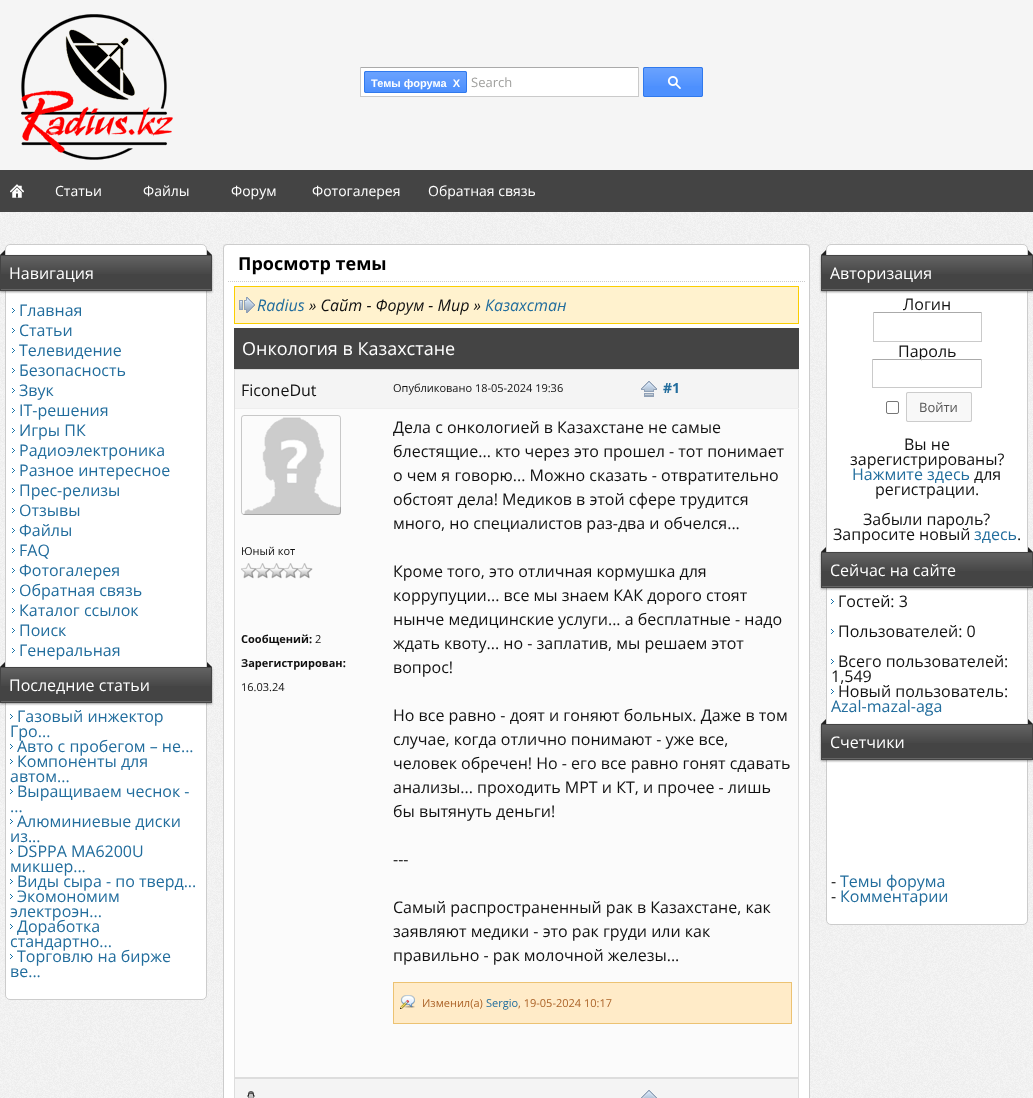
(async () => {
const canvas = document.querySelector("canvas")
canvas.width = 1033
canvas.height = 1098
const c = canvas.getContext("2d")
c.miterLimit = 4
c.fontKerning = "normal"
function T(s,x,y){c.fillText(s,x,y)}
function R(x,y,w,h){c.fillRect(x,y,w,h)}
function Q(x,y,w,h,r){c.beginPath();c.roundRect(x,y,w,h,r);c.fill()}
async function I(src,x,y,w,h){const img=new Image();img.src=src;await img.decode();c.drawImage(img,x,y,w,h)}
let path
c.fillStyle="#fff"
R(0,0,1033,1098)
await I("1.png",0,212,1033,886)
c.fillStyle="#f5f5f5"
R(0,0,1033,170)
await I("2.png",21,14,152,146)
c.fillStyle="#fff"
R(361,68,277,28)
c.fillStyle="#aaa"
R(360,67,279,1)
c.fillStyle="#cacaca"
R(638,67,1,30)
R(360,96,279,1)
R(360,67,1,30)
c.fillStyle="#ddd"
c.filter="blur(0.5px)"
c.beginPath()
c.roundRect(364,71,103,22,2)
c.fill()
c.filter="none"
c.fillStyle="#4d90fe"
Q(364,71,103,22,2)
await I("3.png",364,72,103,18)
c.beginPath()
c.roundRect(364.5,71.5,102,21,1.5)
c.strokeStyle="#3079ed"
c.stroke()
c.font="bold 11px Liberation Sans"
c.fillStyle="#fff"
T("Темы форума  X",371,87)
c.font="13px Open Sans"
c.fillStyle="#a0a09e"
T("Search",471,87)
c.fillStyle="#ddd"
c.filter="blur(0.5px)"
c.beginPath()
c.roundRect(643,67,60,30,2)
c.fill()
c.filter="none"
c.fillStyle="#4d90fe"
Q(643,67,60,30,2)
await I("4.png",643,68,60,18)
c.beginPath()
c.roundRect(643.5,67.5,59,29,1.5)
c.stroke()
await I("5.png",667,76,14,13)
c.fillStyle="#444"
R(0,170,1033,42)
await I("6.png",10,184,14,14)
c.font="14px Open Sans"
c.fillStyle="#fff"
T("Статьи",55,196)
T("Файлы",143,196)
T("Форум",231,196)
T("Фотогалерея",312,196)
T("Обратная связь",428,196)
c.beginPath()
c.roundRect(5.5,244.5,201,755,4.5)
c.fill()
c.strokeStyle="#ccc"
c.stroke()
c.fillStyle="#222"
path = new Path2D("M5 255h-5l5-5z")
c.fill(path)
path = new Path2D("M212 255h-5v-5z")
c.fill(path)
c.fillStyle="#00000066"
c.filter="blur(1px)"
c.beginPath()
c.rect(0,256,212,36)
c.fill()
c.filter="none"
c.fillStyle="#444"
R(1,256,210,33)
await I("7.png",1,256,210,18)
c.fillStyle="#666"
R(1,289,210,1)
c.strokeStyle="#444"
c.strokeRect(.5,255.5,211,35)
c.font="16px Open Sans"
c.fillStyle="#fff"
T("Навигация",9,279)
await I("8.png",12,308,3,5)
c.fillStyle="#226d9d"
T("Главная",19,316)
await I("8.png",12,328,3,5)
T("Статьи",19,336)
await I("8.png",12,348,3,5)
T("Телевидение",19,356)
await I("8.png",12,368,3,5)
T("Безопасность",19,376)
await I("8.png",12,388,3,5)
T("Звук",19,396)
await I("8.png",12,408,3,5)
T("IT-решения",19,416)
await I("8.png",12,428,3,5)
T("Игры ПК",19,436)
await I("8.png",12,448,3,5)
T("Радиоэлектроника",19,456)
await I("8.png",12,468,3,5)
T("Разное интересное",19,476)
await I("8.png",12,488,3,5)
T("Прес-релизы",19,496)
await I("8.png",12,508,3,5)
T("Отзывы",19,516)
await I("8.png",12,528,3,5)
T("Файлы",19,536)
await I("8.png",12,548,3,5)
T("FAQ",19,556)
await I("8.png",12,568,3,5)
T("Фотогалерея",19,576)
await I("8.png",12,588,3,5)
T("Обратная связь",19,596)
await I("8.png",12,608,3,5)
T("Каталог ссылок",19,616)
await I("8.png",12,628,3,5)
T("Поиск",19,636)
await I("8.png",12,648,3,5)
T("Генеральная",19,656)
c.fillStyle="#222"
path = new Path2D("M5 667h-5l5-5z")
c.fill(path)
path = new Path2D("M212 667h-5v-5z")
c.fill(path)
c.fillStyle="#00000066"
c.filter="blur(1px)"
c.beginPath()
c.rect(0,668,212,36)
c.fill()
c.filter="none"
c.fillStyle="#444"
R(1,668,210,33)
await I("7.png",1,668,210,18)
c.fillStyle="#666"
R(1,701,210,1)
c.strokeRect(.5,667.5,211,35)
c.fillStyle="#fff"
T("Последние статьи",9,691)
await I("8.png",10,714,3,5)
c.fillStyle="#226d9d"
T("Газовый инжектор",17,722)
T("Гро...",10,737)
await I("8.png",10,744,3,5)
T("Авто с пробегом – не...",17,752)
await I("8.png",10,759,3,5)
T("Компоненты для",17,767)
T("автом...",10,782)
await I("8.png",10,789,3,5)
T("Выращиваем чеснок -",17,797)
T("...",10,812)
await I("8.png",10,819,3,5)
T("Алюминиевые диски",17,827)
T("из...",10,842)
await I("8.png",10,849,3,5)
T("DSPPA MA6200U",17,857)
T("микшер...",10,872)
await I("8.png",10,879,3,5)
T("Виды сыра - по тверд...",17,887)
await I("8.png",10,894,3,5)
T("Экомономим",17,902)
T("электроэн...",10,917)
await I("8.png",10,924,3,5)
T("Доработка",17,932)
T("стандартно...",10,947)
await I("8.png",10,954,3,5)
T("Торговлю на бирже",17,962)
T("ве...",10,977)
c.save()
c.beginPath()
c.rect(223,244,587,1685)
c.clip()
c.fillStyle="#ccc"
c.filter="blur(2px)"
c.beginPath()
c.roundRect(223,245,587,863,4)
c.fill()
c.filter="none"
c.restore()
c.fillStyle="#fff"
c.beginPath()
c.roundRect(223.5,244.5,586,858,3.5)
c.fill()
c.strokeStyle="#ccc"
c.stroke()
path = new Path2D("M228 281.5h577")
c.setLineDash([1,1])
c.stroke(path)
c.font="bold 18px Open Sans"
c.fillStyle="#000"
T("Просмотр темы",238,270)
c.fillStyle="#fff2ce"
R(235,287,563,36)
await I("9.png",239,297,16,16)
c.strokeStyle="#fbce00"
c.setLineDash([])
c.strokeRect(234.5,286.5,564,37)
c.font="italic 16px Open Sans"
c.fillStyle="#226d9d"
T("Radius",257,311)
c.fillStyle="#111"
T("» Сайт - Форум - Мир »",309,311)
c.fillStyle="#226d9d"
T("Казахстан",485,311)
c.fillStyle="#444"
R(234,328,565,41)
c.font="18px Open Sans"
c.fillStyle="#fff"
T("Онкология в Казахстане",242,355)
c.fillStyle="#f4f4f4"
R(235,370,563,38)
c.fillStyle="#ddd"
R(234,369,565,1)
c.fillStyle="#eee"
R(234,408,153,1)
c.fillStyle="#ddd"
R(234,369,1,672)
c.font="16px Open Sans"
c.fillStyle="#111"
T("FiconeDut",241,396)
c.fillStyle="#ddd"
R(798,369,1,709)
c.fillStyle="#eee"
R(387,408,412,1)
c.font="11px Open Sans"
c.fillStyle="#111"
T("Опубликовано 18-05-2024 19:36",393,392)
await I("10.png",641,381,16,16)
c.font="bold 14px Open Sans"
c.fillStyle="#226d9d"
T("#1",663,393)
c.fillStyle="#fbfbfb"
R(235,409,563,632)
await I("11.png",243,417,98,98)
c.beginPath()
c.roundRect(241.5,415.5,99,99,2.5)
c.strokeStyle="#00000033"
c.stroke()
c.font="11px Open Sans"
c.fillStyle="#111"
T("Юный кот",241,555)
await I("12.png",241,563,72,16)
c.font="bold 11px Open Sans"
T("Сообщений:",241,643)
c.font="11px Open Sans"
T("2",315,643)
c.font="bold 11px Open Sans"
T("Зарегистрирован:",241,667)
c.font="11px Open Sans"
T("16.03.24",241,691)
c.font="16px Open Sans"
T("Дела с онкологией в Казахстане не самые",393,433)
T("блестящие... кто через это прошел - тот понимает",393,457)
T("о чем я говорю... Можно сказать - отвратительно",393,481)
T("обстоят дела! Медиков в этой сфере трудится",393,505)
T("много, но специалистов раз-два и обчелся...",393,529)
T("Кроме того, это отличная кормушка для",393,577)
T("коррупуции... все мы знаем КАК дорого стоят",393,601)
T("нынче медицинские услуги... а бесплатные - надо",393,625)
T("ждать квоту... но - заплатив, мы решаем этот",393,649)
T("вопрос!",393,673)
T("Но все равно - доят и гоняют больных. Даже в том",393,721)
T("случае, когда отлично понимают - уже все,",393,745)
T("человек обречен! Но - его все равно гонят сдавать",393,769)
T("анализы... проходить МРТ и КТ, и прочее - лишь",393,793)
T("бы вытянуть деньги!",393,817)
T("---",393,865)
T("Самый распространенный рак в Казахстане, как",393,913)
T("заявляют медики - это рак груди или как",393,937)
T("правильно - рак молочной железы...",393,961)
c.fillStyle="#ffebc8"
R(394,983,397,40)
await I("13.png",400,995,15,14)
c.strokeStyle="#ecc272"
c.strokeRect(393.5,982.5,398,41)
c.font="11px Open Sans"
c.fillStyle="#ac6328"
T("Изменил(а)",422,1007)
c.fillStyle="#226d9d"
T("Sergio",486,1007)
c.fillStyle="#ac6328"
T(", 19-05-2024 10:17",518,1007)
c.fillStyle="#fbfbfb"
R(235,1041,563,36)
c.fillStyle="#ddd"
R(234,1077,565,1)
R(234,1041,1,37)
c.fillStyle="#f4f4f4"
R(235,1079,563,19)
c.fillStyle="#ddd"
R(234,1078,565,1)
R(234,1078,1,20)
await I("14.png",247,1091,8,7)
R(798,1078,1,20)
await I("15.png",641,1090,16,8)
c.fillStyle="#fff"
c.beginPath()
c.roundRect(826.5,244.5,201,680,4.5)
c.fill()
c.strokeStyle="#ccc"
c.stroke()
c.fillStyle="#222"
path = new Path2D("M826 255h-5l5-5z")
c.fill(path)
path = new Path2D("M1033 255h-5v-5z")
c.fill(path)
c.fillStyle="#00000066"
c.filter="blur(1px)"
c.beginPath()
c.rect(821,256,212,36)
c.fill()
c.filter="none"
c.fillStyle="#444"
R(822,256,210,33)
await I("7.png",822,256,210,18)
c.fillStyle="#666"
R(822,289,210,1)
c.strokeStyle="#444"
c.strokeRect(821.5,255.5,211,35)
c.font="16px Open Sans"
c.fillStyle="#fff"
T("Авторизация",830,279)
c.fillStyle="#111"
T("Логин",903,310)
c.fillStyle="#aaa"
R(873,312,109,1)
c.fillStyle="#cacaca"
R(981,312,1,30)
R(873,341,109,1)
R(873,312,1,30)
c.fillStyle="#111"
T("Пароль",898,357)
c.fillStyle="#fff"
R(919,360,2,1)
c.fillStyle="#aaa"
R(872,359,110,1)
c.fillStyle="#cacaca"
R(981,359,1,29)
R(872,387,110,1)
R(872,359,1,29)
c.beginPath()
c.roundRect(886.5,401.5,12,12,1.5)
c.strokeStyle="#767676"
c.stroke()
c.fillStyle="#ddd"
c.filter="blur(0.5px)"
c.beginPath()
c.roundRect(906,392,66,30,2)
c.fill()
c.filter="none"
c.fillStyle="#f8f8f8"
c.beginPath()
c.roundRect(906.5,392.5,65,29,1.5)
c.fill()
c.strokeStyle="#ccc"
c.stroke()
c.font="13px Open Sans"
c.fillStyle="#555"
T("Войти",919,412)
c.font="16px Open Sans"
c.fillStyle="#111"
T("Вы не",904,450)
T("зарегистрированы?",850,465)
c.fillStyle="#226d9d"
T("Нажмите здесь",852,480)
c.fillStyle="#111"
T("для",974,480)
T("регистрации.",875,495)
T("Забыли пароль?",863,525)
T("Запросите новый",833,540)
c.fillStyle="#226d9d"
T("здесь",974,540)
c.fillStyle="#111"
T(".",1017,540)
c.fillStyle="#222"
path = new Path2D("M826 552h-5l5-5z")
c.fill(path)
path = new Path2D("M1033 552h-5v-5z")
c.fill(path)
c.fillStyle="#00000066"
c.filter="blur(1px)"
c.beginPath()
c.rect(821,553,212,36)
c.fill()
c.filter="none"
c.fillStyle="#444"
R(822,553,210,33)
await I("7.png",822,553,210,18)
c.fillStyle="#666"
R(822,586,210,1)
c.strokeStyle="#444"
c.strokeRect(821.5,552.5,211,35)
c.fillStyle="#fff"
T("Сейчас на сайте",830,576)
await I("8.png",831,599,3,5)
c.fillStyle="#111"
T("Гостей: 3",838,607)
await I("8.png",831,629,3,5)
T("Пользователей: 0",838,637)
await I("8.png",831,659,3,5)
T("Всего пользователей:",838,667)
T("1,549",831,682)
await I("8.png",831,689,3,5)
T("Новый пользователь:",838,697)
c.fillStyle="#226d9d"
T("Azal-mazal-aga",831,712)
c.fillStyle="#222"
path = new Path2D("M826 724h-5l5-5z")
c.fill(path)
path = new Path2D("M1033 724h-5v-5z")
c.fill(path)
c.fillStyle="#00000066"
c.filter="blur(1px)"
c.beginPath()
c.rect(821,725,212,36)
c.fill()
c.filter="none"
c.fillStyle="#444"
R(822,725,210,33)
await I("7.png",822,725,210,18)
c.fillStyle="#666"
R(822,758,210,1)
c.strokeRect(821.5,724.5,211,35)
c.fillStyle="#fff"
T("Счетчики",830,748)
c.fillStyle="#111"
T("-",831,887)
c.fillStyle="#226d9d"
T("Темы форума",840,887)
c.fillStyle="#111"
T("-",831,902)
c.fillStyle="#226d9d"
T("Комментарии",840,902)
})()
